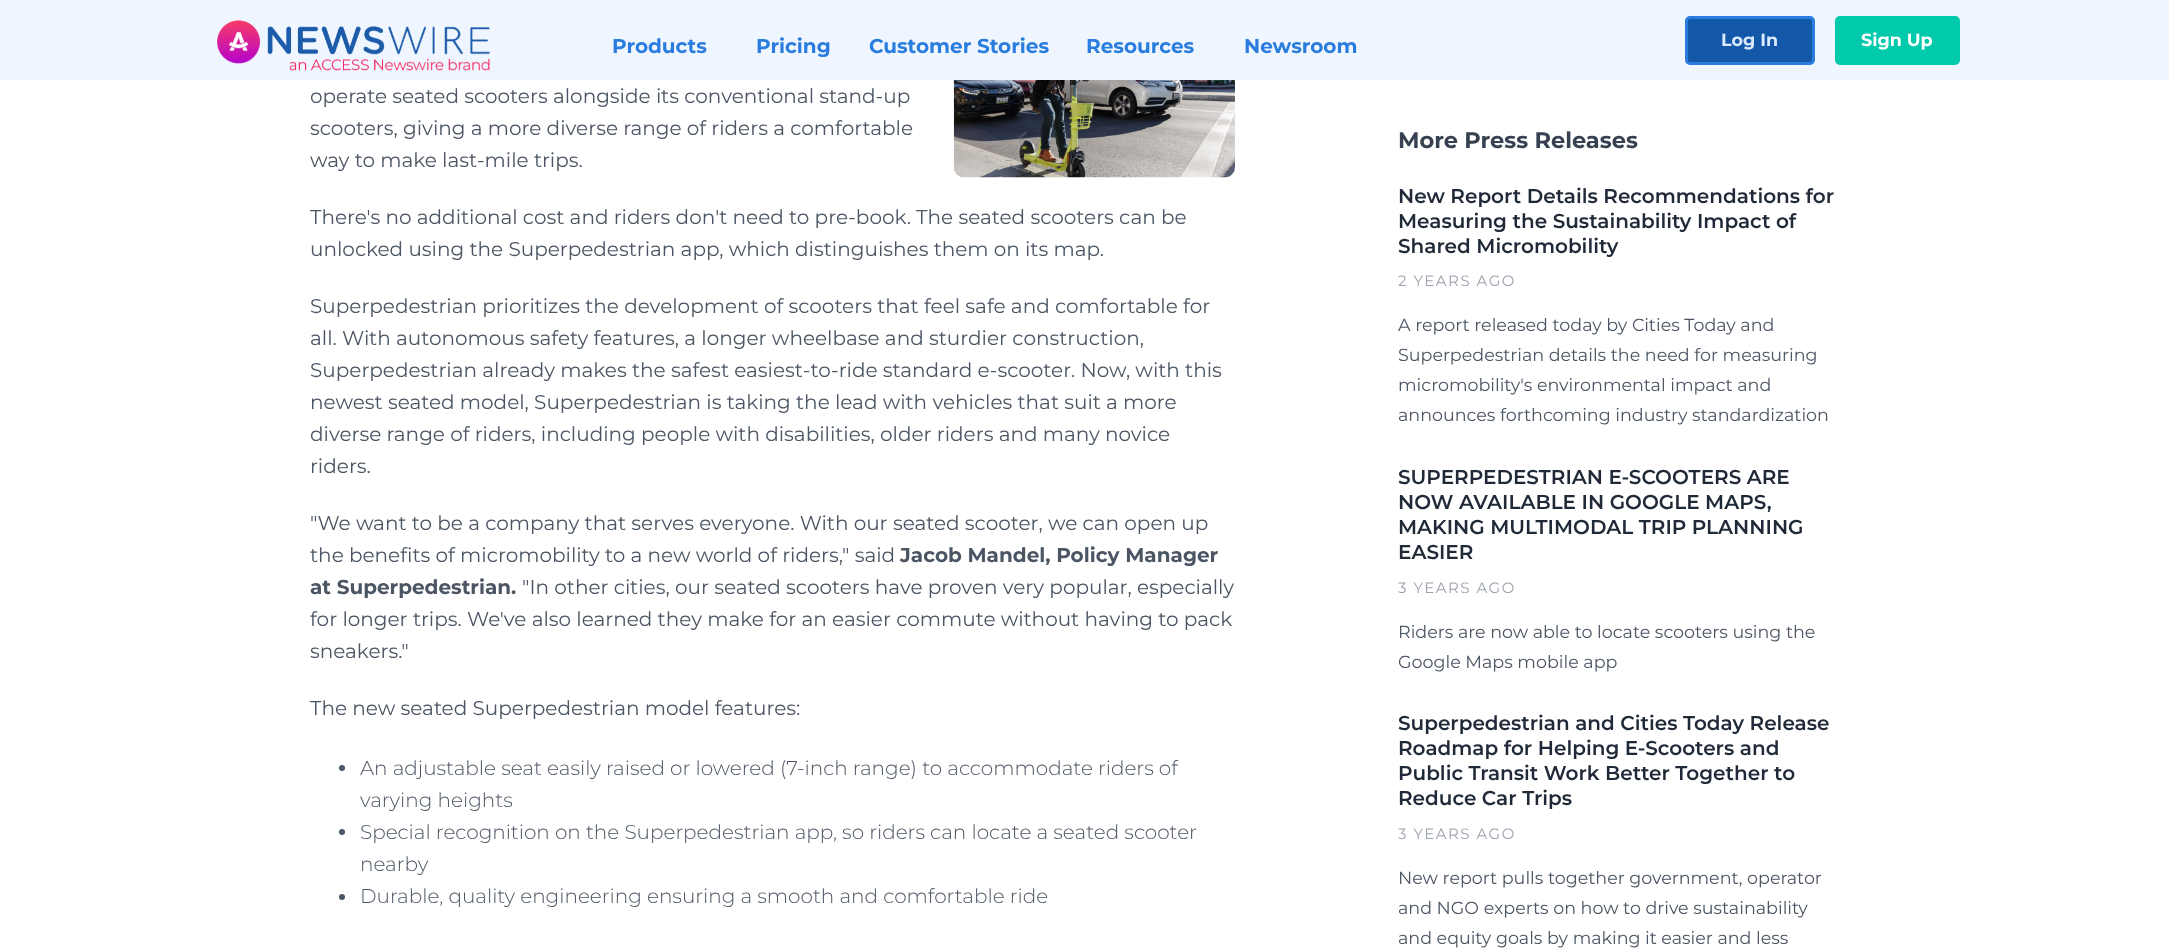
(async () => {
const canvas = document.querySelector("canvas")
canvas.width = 2169
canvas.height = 950
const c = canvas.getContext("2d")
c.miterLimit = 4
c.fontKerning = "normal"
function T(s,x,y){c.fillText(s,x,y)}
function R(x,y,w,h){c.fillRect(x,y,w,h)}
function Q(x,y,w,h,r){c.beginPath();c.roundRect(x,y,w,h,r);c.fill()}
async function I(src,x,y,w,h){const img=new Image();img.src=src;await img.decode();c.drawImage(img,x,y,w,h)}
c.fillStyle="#fff"
R(0,0,2169,950)
c.fillStyle="#eff6ff"
R(0,0,2169,80)
await I("1.png",217,20,273,51)
c.font="bold 20px Montserrat"
c.fillStyle="#2a7ddf"
T("Products",612,53)
T("Pricing",756,53)
T("Customer Stories",869,53)
T("Resources",1086,53)
T("Newsroom",1244,53)
c.fillStyle="#1357a8"
c.beginPath()
c.roundRect(1686.5,17.5,127,46,3.5)
c.fill()
c.strokeStyle="#2a7ddf"
c.lineWidth=3
c.stroke()
c.font="bold 17.5px Montserrat"
c.fillStyle="#dbeafe"
T("Log In",1721,46)
c.fillStyle="#00caab"
Q(1835,16,125,49,5)
c.fillStyle="#fff"
T("Sign Up",1861,46)
await I("2.png",953,80,282,98)
c.font="20px Montserrat"
c.fillStyle="#4b5563"
T("operate seated scooters alongside its conventional stand-up",310,103)
T("scooters, giving a more diverse range of riders a comfortable",310,135)
T("way to make last-mile trips.",310,167)
T("There's no additional cost and riders don't need to pre-book. The seated scooters can be",310,224)
T("unlocked using the Superpedestrian app, which distinguishes them on its map.",310,256)
T("Superpedestrian prioritizes the development of scooters that feel safe and comfortable for",310,313)
T("all. With autonomous safety features, a longer wheelbase and sturdier construction,",310,345)
T("Superpedestrian already makes the safest easiest-to-ride standard e-scooter. Now, with this",310,377)
T("newest seated model, Superpedestrian is taking the lead with vehicles that suit a more",310,409)
T("diverse range of riders, including people with disabilities, older riders and many novice",310,441)
T("riders.",310,473)
T("\"We want to be a company that serves everyone. With our seated scooter, we can open up",310,530)
T("the benefits of micromobility to a new world of riders,\" said",310,562)
c.font="bold 20px Montserrat"
T("Jacob Mandel, Policy Manager",900,562)
T("at Superpedestrian.",310,594)
c.font="20px Montserrat"
T("\"In other cities, our seated scooters have proven very popular, especially",522,594)
T("for longer trips. We've also learned they make for an easier commute without having to pack",310,626)
T("sneakers.\"",310,658)
T("The new seated Superpedestrian model features:",310,715)
c.beginPath()
c.arc(342,768,3,0,7)
c.fill()
c.font="300 20px Montserrat"
T("An adjustable seat easily raised or lowered (7-inch range) to accommodate riders of",360,775)
T("varying heights",360,807)
c.beginPath()
c.arc(342,832,3,0,7)
c.fill()
T("Special recognition on the Superpedestrian app, so riders can locate a seated scooter",360,839)
T("nearby",360,871)
c.beginPath()
c.arc(342,897,3,0,7)
c.fill()
T("Durable, quality engineering ensuring a smooth and comfortable ride",360,903)
c.font="bold 22.5px Montserrat"
c.fillStyle="#374151"
T("More Press Releases",1398,148)
c.font="600 20px Montserrat"
c.fillStyle="#1f2937"
T("New Report Details Recommendations for",1398,203)
T("Measuring the Sustainability Impact of",1398,228)
T("Shared Micromobility",1398,253)
c.letterSpacing="1.5px"
c.font="15px Montserrat"
c.fillStyle="#9ca3af"
T("2 YEARS AGO",1398,286)
c.letterSpacing="0px"
c.font="17.5px Montserrat"
c.fillStyle="#4b5563"
T("A report released today by Cities Today and",1398,331)
T("Superpedestrian details the need for measuring",1398,361)
T("micromobility's environmental impact and",1398,391)
T("announces forthcoming industry standardization",1398,421)
c.font="600 20px Montserrat"
c.fillStyle="#1f2937"
T("SUPERPEDESTRIAN E-SCOOTERS ARE",1398,484)
T("NOW AVAILABLE IN GOOGLE MAPS,",1398,509)
T("MAKING MULTIMODAL TRIP PLANNING",1398,534)
T("EASIER",1398,559)
c.letterSpacing="1.5px"
c.font="15px Montserrat"
c.fillStyle="#9ca3af"
T("3 YEARS AGO",1398,593)
c.letterSpacing="0px"
c.font="17.5px Montserrat"
c.fillStyle="#4b5563"
T("Riders are now able to locate scooters using the",1398,638)
T("Google Maps mobile app",1398,668)
c.font="600 20px Montserrat"
c.fillStyle="#1f2937"
T("Superpedestrian and Cities Today Release",1398,730)
T("Roadmap for Helping E-Scooters and",1398,755)
T("Public Transit Work Better Together to",1398,780)
T("Reduce Car Trips",1398,805)
c.letterSpacing="1.5px"
c.font="15px Montserrat"
c.fillStyle="#9ca3af"
T("3 YEARS AGO",1398,839)
c.letterSpacing="0px"
c.font="17.5px Montserrat"
c.fillStyle="#4b5563"
T("New report pulls together government, operator",1398,884)
T("and NGO experts on how to drive sustainability",1398,914)
T("and equity goals by making it easier and less",1398,944)
})()
